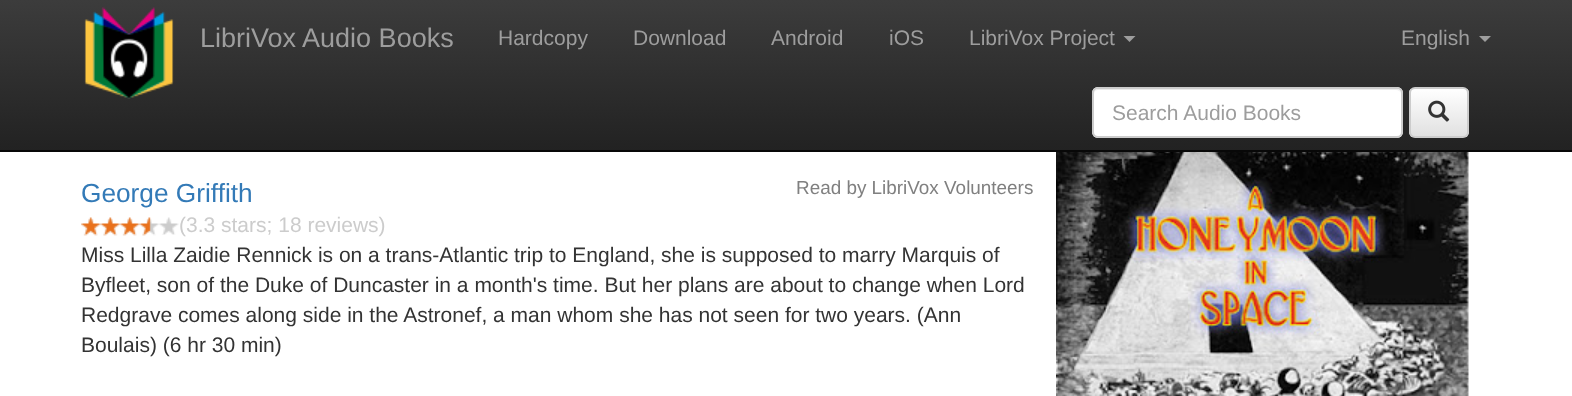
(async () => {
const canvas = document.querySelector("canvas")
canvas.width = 1572
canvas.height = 396
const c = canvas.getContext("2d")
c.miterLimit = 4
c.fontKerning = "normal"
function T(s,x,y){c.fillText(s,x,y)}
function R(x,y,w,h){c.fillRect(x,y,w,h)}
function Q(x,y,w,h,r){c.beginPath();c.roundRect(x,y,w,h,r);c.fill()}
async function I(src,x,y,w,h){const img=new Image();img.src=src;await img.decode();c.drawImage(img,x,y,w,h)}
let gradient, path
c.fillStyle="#fff"
R(0,0,1572,396)
gradient = c.createLinearGradient(786,0,786,150)
gradient.addColorStop(0,"#3c3c3c")
gradient.addColorStop(1,"#222")
c.fillStyle = gradient
R(0,0,1572,150)
c.fillStyle="#080808"
R(0,150,1572,2)
await I("1.png",84,7,90,92)
c.font="27px Liberation Sans"
c.fillStyle="#9d9d9d"
T("LibriVox Audio Books",200,47)
c.font="21px Liberation Sans"
T("Hardcopy",498,45)
T("Download",633,45)
T("Android",771,45)
T("iOS",889,45)
T("LibriVox Project",969,45)
path = new Path2D("M1123.5 36h12l-6 6z")
c.fill(path)
T("English",1401,45)
path = new Path2D("M1479 36h12l-6 6z")
c.fill(path)
c.fillStyle="#fff"
Q(1092,87,311,51,6)
c.fillStyle="#ececec"
path = new Path2D("M1098 90h298c3 0 5 2 5 4c0-3-2-5-5-5h-297c-3 0-5 2-5 5c0-2 2-4 4-4z")
c.fill(path)
c.beginPath()
c.roundRect(1093,88,309,49,5)
c.strokeStyle="#ccc"
c.lineWidth=2
c.stroke()
c.fillStyle="#9d9d9d"
T("Search Audio Books",1112,120)
c.save()
c.beginPath()
c.roundRect(1409,87,60,51,6)
c.clip()
gradient = c.createLinearGradient(1439,89,1439,137)
gradient.addColorStop(0,"#fff")
gradient.addColorStop(1,"#e0e0e0")
c.fillStyle = gradient
R(1409,89,60,48)
c.restore()
c.beginPath()
c.roundRect(1410,88,58,49,5)
c.stroke()
await I("2.png",1428,100,22,22)
c.font="26.25px Liberation Sans"
c.fillStyle="#337ab7"
T("George Griffith",81,202)
c.font="18.9px Liberation Sans"
c.fillStyle="#808080"
T("Read by LibriVox Volunteers",796,194)
await I("3.png",1056,152,413,244)
await I("4.png",81,217,20,19)
await I("5.png",100,217,20,19)
await I("4.png",120,217,20,19)
await I("6.png",139,217,20,19)
await I("7.png",159,217,20,18)
c.font="21px Liberation Sans"
c.fillStyle="#ccc"
T("(3.3 stars; 18 reviews)",179,232)
c.fillStyle="#333"
T("Miss Lilla Zaidie Rennick is on a trans-Atlantic trip to England, she is supposed to marry Marquis of",81,262)
T("Byfleet, son of the Duke of Duncaster in a month's time. But her plans are about to change when Lord",81,292)
T("Redgrave comes along side in the Astronef, a man whom she has not seen for two years. (Ann",81,322)
T("Boulais) (6 hr 30 min)",81,352)
})()
